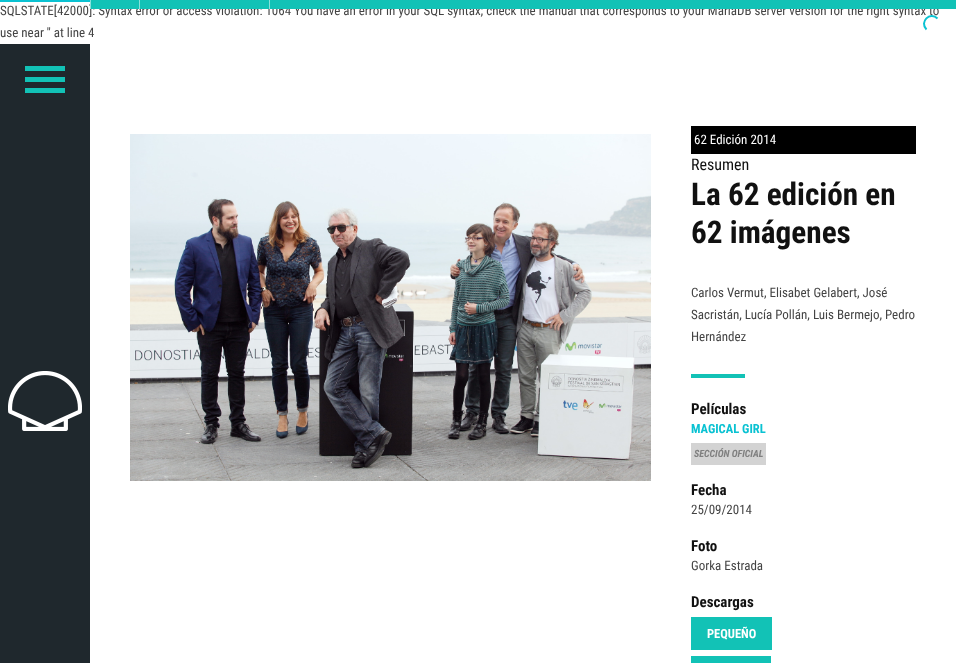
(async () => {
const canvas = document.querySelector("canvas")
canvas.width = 956
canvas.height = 663
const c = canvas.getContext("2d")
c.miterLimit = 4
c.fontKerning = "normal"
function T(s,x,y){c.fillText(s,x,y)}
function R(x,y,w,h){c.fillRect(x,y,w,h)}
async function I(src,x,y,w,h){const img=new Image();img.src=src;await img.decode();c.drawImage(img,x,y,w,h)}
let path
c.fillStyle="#fff"
R(0,0,956,663)
c.font="13px Roboto Condensed"
c.fillStyle="#444"
T("SQLSTATE[42000]: Syntax error or access violation: 1064 You have an error in your SQL syntax; check the manual that corresponds to your MariaDB server version for the right syntax to",0,15)
T("use near '' at line 4",0,37)
c.fillStyle="#0ac2d2"
R(0,0,90,2)
path = new Path2D("M926.5 29.5c-7.5-7.5 3.5-18.5 11-11")
c.strokeStyle="#0ac2d2"
c.lineWidth=2
c.stroke(path)
c.fillStyle="#12c2b6"
R(91,0,865,9)
c.fillStyle="#89e1db"
R(139,0,1,9)
R(90,0,1,9)
R(269,0,1,9)
c.fillStyle="#1f282d"
R(0,44,90,619)
c.fillStyle="#12c2b6"
R(25,66,40,5)
R(25,77,40,5)
R(25,88,40,5)
await I("1.png",8,371,74,60)
await I("2.png",130,134,521,347)
c.fillStyle="#000"
R(691,126,225,28)
c.fillStyle="#fff"
T("62 Edición 2014",694,144)
c.font="16px Roboto Condensed"
c.fillStyle="#111"
T("Resumen",691,170)
c.font="bold 31.25px Roboto Condensed"
T("La 62 edición en",691,205)
T("62 imágenes",691,243)
c.font="13px Roboto Condensed"
c.fillStyle="#444"
T("Carlos Vermut, Elisabet Gelabert, José",691,297)
T("Sacristán, Lucía Pollán, Luis Bermejo, Pedro",691,319)
T("Hernández",691,341)
c.fillStyle="#12c2b6"
R(691,374,54,4)
c.font="bold 15px Roboto Condensed"
c.fillStyle="#111"
T("Películas",691,414)
c.font="bold 12.5px Roboto Condensed"
c.fillStyle="#0ac2d2"
T("MAGICAL GIRL",691,433)
c.fillStyle="#d3d3d3"
R(691,443,75,22)
c.font="italic bold 10px Roboto Condensed"
c.fillStyle="#808080"
T("SECCIÓN OFICIAL",694,457)
c.font="bold 15px Roboto Condensed"
c.fillStyle="#111"
T("Fecha",691,495)
c.font="13px Roboto Condensed"
c.fillStyle="#444"
T("25/09/2014",691,514)
c.font="bold 15px Roboto Condensed"
c.fillStyle="#111"
T("Foto",691,551)
c.font="13px Roboto Condensed"
c.fillStyle="#444"
T("Gorka Estrada",691,570)
c.font="bold 15px Roboto Condensed"
c.fillStyle="#111"
T("Descargas",691,607)
c.fillStyle="#12c2b6"
R(691,617,81,33)
c.font="bold 12.5px Roboto Condensed"
c.fillStyle="#fff"
T("PEQUEÑO",707,638)
c.fillStyle="#12c2b6"
R(691,656,80,7)
})()
